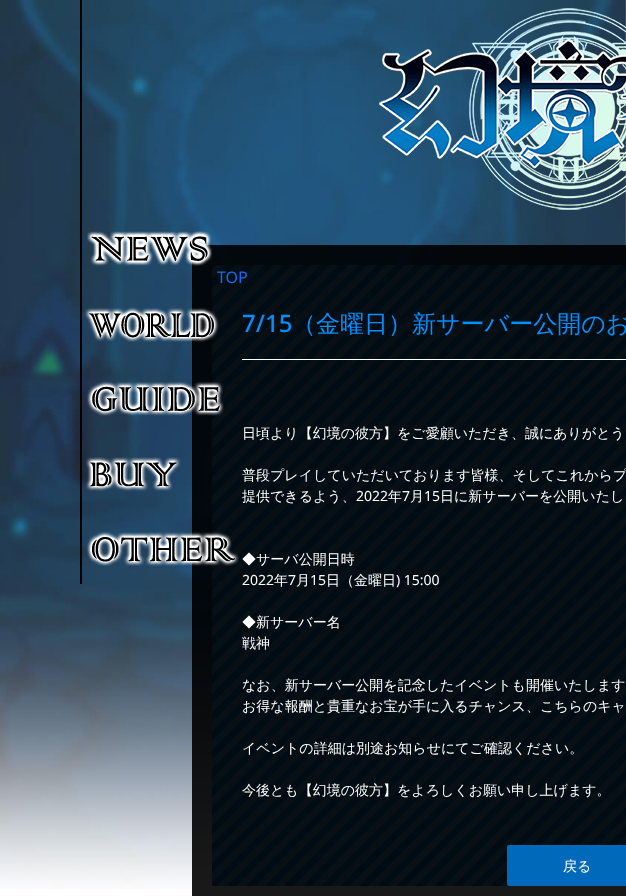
(async () => {
const canvas = document.querySelector("canvas")
canvas.width = 626
canvas.height = 896
const c = canvas.getContext("2d")
c.miterLimit = 4
c.fontKerning = "normal"
function T(s,x,y){c.fillText(s,x,y)}
function R(x,y,w,h){c.fillRect(x,y,w,h)}
function Q(x,y,w,h,r){c.beginPath();c.roundRect(x,y,w,h,r);c.fill()}
async function I(src,x,y,w,h){const img=new Image();img.src=src;await img.decode();c.drawImage(img,x,y,w,h)}
c.fillStyle="#fff"
R(0,0,626,896)
await I("1.png",625,0,1,265)
await I("8.png",0,0,626,889)
c.fillStyle="#000"
R(80,0,2,584)
await I("10.png",212,265,414,621)
c.fillStyle="#000000e6"
R(192,245,434,651)
await I("2.png",87,231,125,35)
await I("3.png",87,231,125,35)
await I("4.png",84,307,135,35)
await I("5.png",87,381,137,35)
await I("6.png",85,457,96,34)
await I("7.png",86,531,153,35)
await I("9.png",379,8,247,202)
c.font="16px Noto Sans"
c.fillStyle="#0d6efd"
T("TOP",217,283)
c.fillStyle="#fff"
R(242,359,384,1)
c.font="500 24px Noto Sans"
c.fillStyle="#0090ff"
T("7/15",242,332)
c.font="500 24px WenQuanYi Zen Hei"
T("（金曜日）新サーバー公開のお",292,332)
c.font="500 14px WenQuanYi Zen Hei"
c.fillStyle="#fff"
T("日頃より【幻境の彼方】をご愛顧いただき、誠にありがとう",242,438)
T("普段プレイしていただいております皆様、そしてこれからプ",242,480)
T("提供できるよう、",242,501)
c.font="14px Noto Sans"
T("2022",356,501)
c.font="500 14px WenQuanYi Zen Hei"
T("年",388,501)
c.font="14px Noto Sans"
T("7",402,501)
c.font="500 14px WenQuanYi Zen Hei"
T("月",410,501)
c.font="14px Noto Sans"
T("15",424,501)
c.font="500 14px WenQuanYi Zen Hei"
T("日に新サーバーを公開いたし",440,501)
T("◆サーバ公開日時",242,564)
c.font="14px Noto Sans"
T("2022",242,585)
c.font="500 14px WenQuanYi Zen Hei"
T("年",274,585)
c.font="14px Noto Sans"
T("7",288,585)
c.font="500 14px WenQuanYi Zen Hei"
T("月",296,585)
c.font="14px Noto Sans"
T("15",310,585)
c.font="500 14px WenQuanYi Zen Hei"
T("日（金曜日",326,585)
c.font="14px Noto Sans"
T(") 15:00",396,585)
c.font="500 14px WenQuanYi Zen Hei"
T("◆新サーバー名",242,627)
T("戦神",242,648)
T("なお、新サーバー公開を記念したイベントも開催いたします",242,690)
T("お得な報酬と貴重なお宝が手に入るチャンス、こちらのキャ",242,711)
T("イベントの詳細は別途お知らせにてご確認ください。",242,753)
T("今後とも【幻境の彼方】をよろしくお願い申し上げます。",242,795)
c.fillStyle="#0069b9"
Q(507,845,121,41,2)
c.fillStyle="#fff"
T("戻る",563,871)
})()
